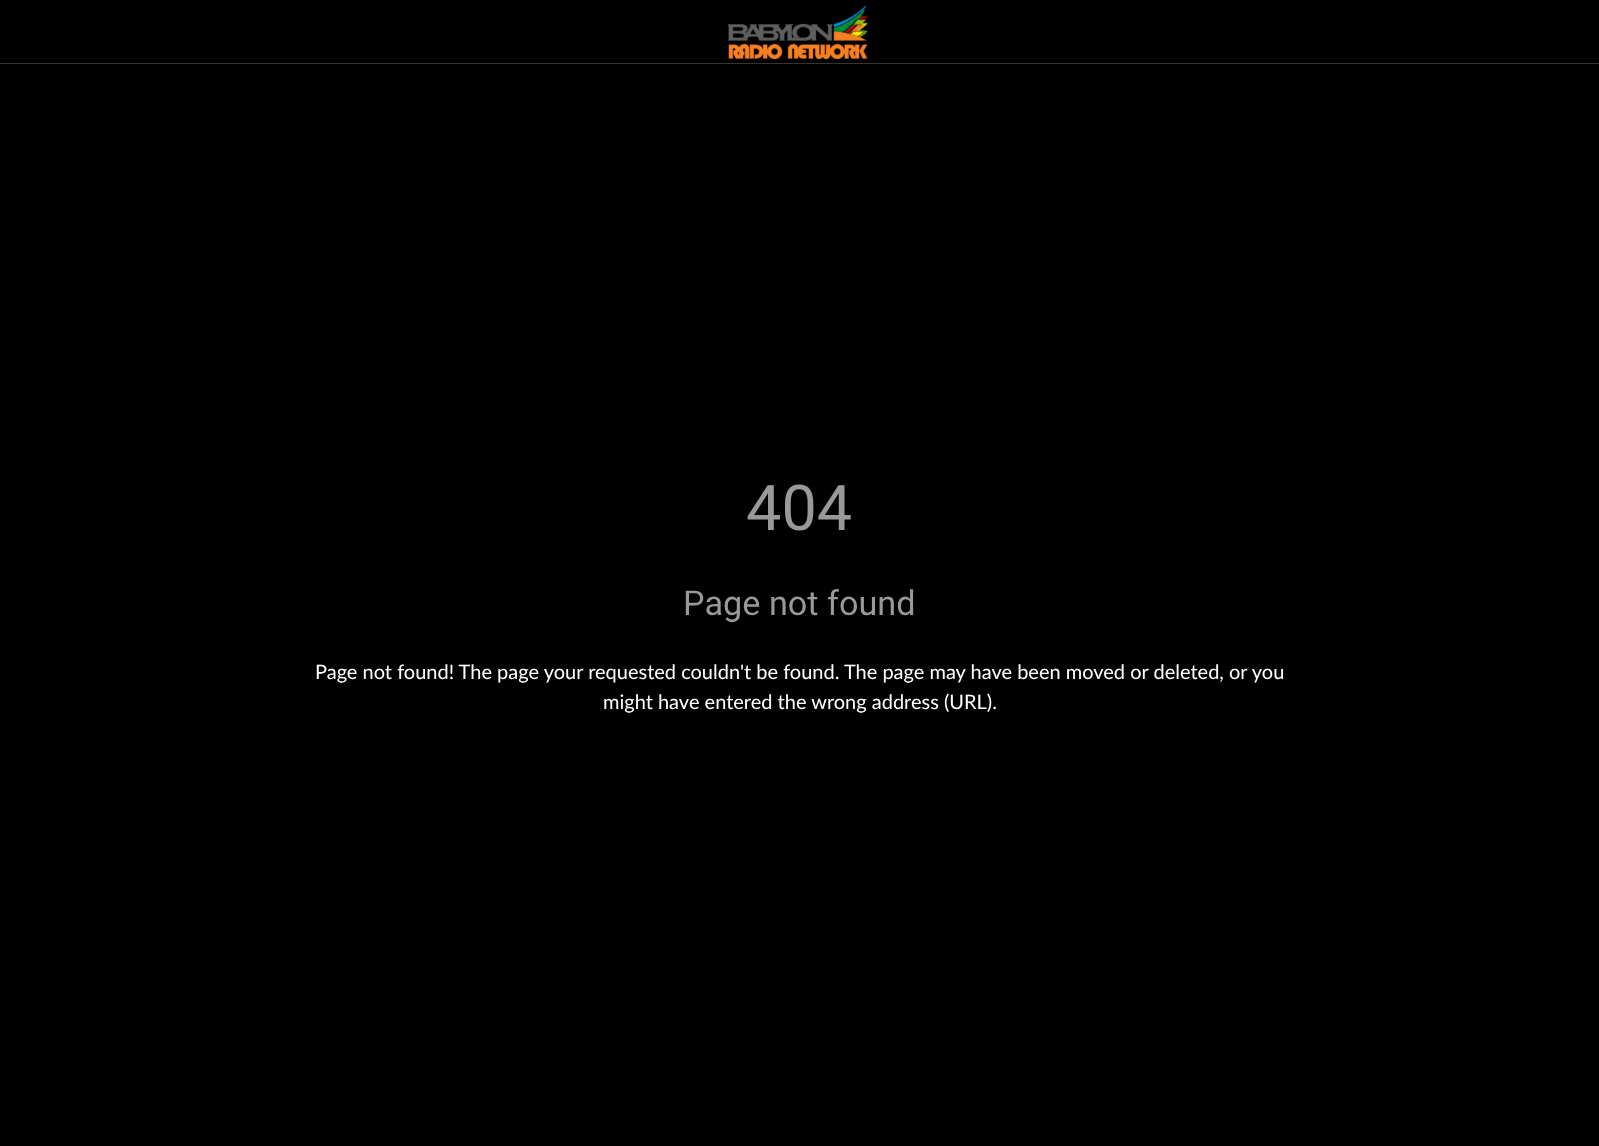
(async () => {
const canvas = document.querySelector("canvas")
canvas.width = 1599
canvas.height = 1146
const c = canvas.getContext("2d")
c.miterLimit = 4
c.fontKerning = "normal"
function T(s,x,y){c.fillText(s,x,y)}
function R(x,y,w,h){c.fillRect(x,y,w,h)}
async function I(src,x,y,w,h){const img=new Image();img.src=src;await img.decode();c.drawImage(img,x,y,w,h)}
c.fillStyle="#000"
R(0,0,1599,1146)
c.fillStyle="#333"
R(0,63,1599,1)
await I("1.png",727,5,141,54)
c.font="63px Roboto"
c.fillStyle="#999"
T("404",746,530)
c.font="34.25px Roboto"
T("Page not found",683,615)
c.font="20px Lato"
c.fillStyle="#fff"
T("Page not found! The page your requested couldn't be found. The page may have been moved or deleted, or you",315,679)
T("might have entered the wrong address (URL).",603,709)
})()
